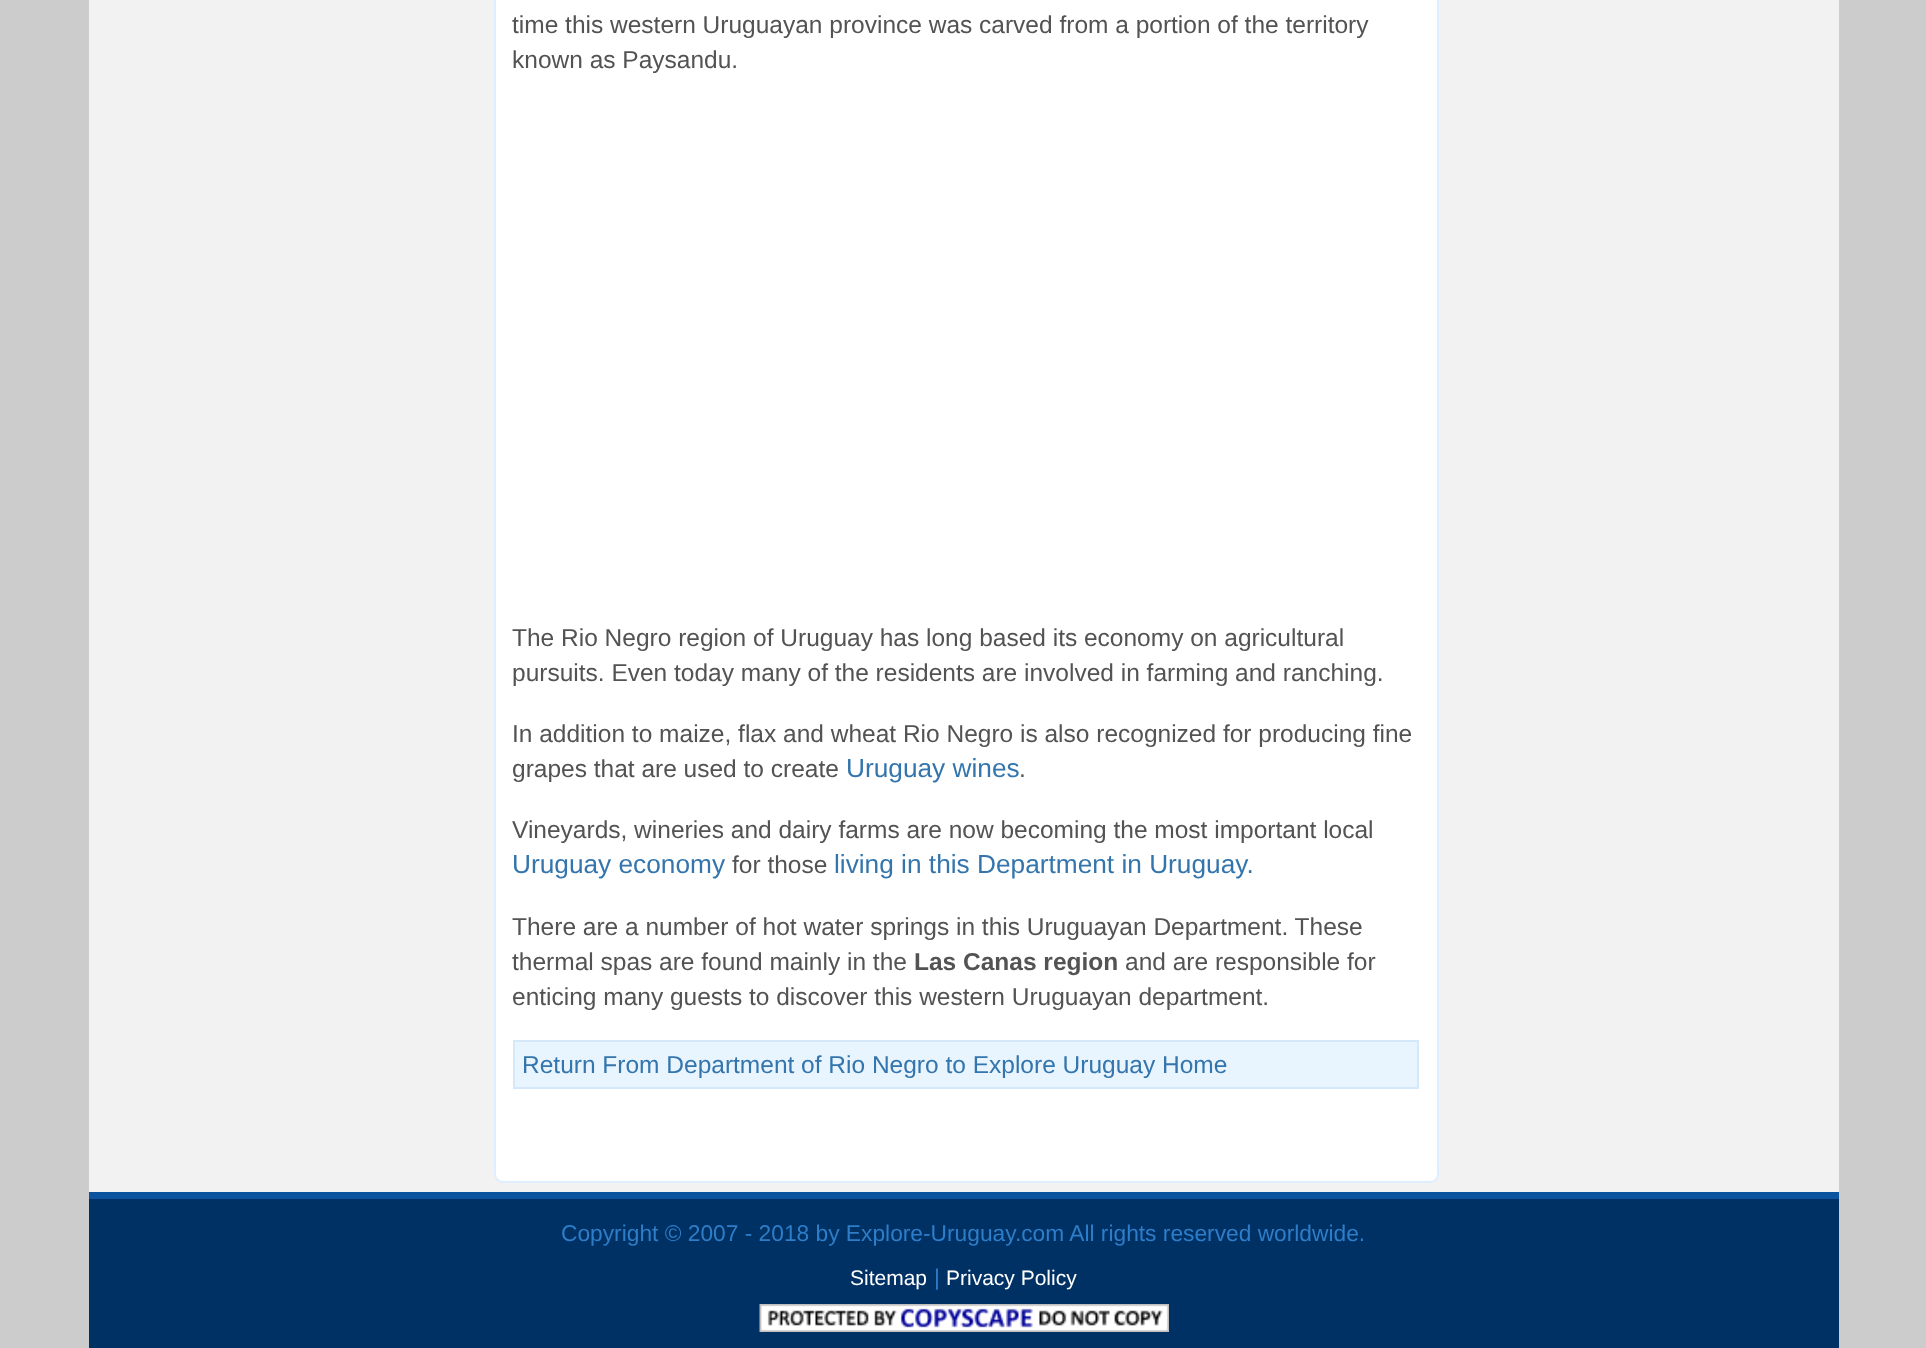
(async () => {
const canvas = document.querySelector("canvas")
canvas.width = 1926
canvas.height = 1348
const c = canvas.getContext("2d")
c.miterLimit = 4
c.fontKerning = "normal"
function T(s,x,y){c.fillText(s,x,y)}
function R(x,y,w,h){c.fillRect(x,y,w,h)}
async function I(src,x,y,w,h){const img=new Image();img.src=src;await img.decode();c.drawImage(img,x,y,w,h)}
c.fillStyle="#ccc"
R(0,0,1926,1348)
c.fillStyle="#f2f2f2"
R(89,0,1750,1192)
c.fillStyle="#fff"
c.beginPath()
c.roundRect(495,-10,943,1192,8)
c.fill()
c.strokeStyle="#deeefe"
c.lineWidth=2
c.stroke()
c.font="24.5px Liberation Sans"
c.fillStyle="#535353"
T("time this western Uruguayan province was carved from a portion of the territory",512,33)
T("known as Paysandu.",512,68)
T("The Rio Negro region of Uruguay has long based its economy on agricultural",512,646)
T("pursuits. Even today many of the residents are involved in farming and ranching.",512,681)
T("In addition to maize, flax and wheat Rio Negro is also recognized for producing fine",512,742)
T("grapes that are used to create",512,777)
c.font="26.25px Liberation Sans"
c.fillStyle="#3375ac"
T("Uruguay wines",846,777)
c.font="24.5px Liberation Sans"
c.fillStyle="#535353"
T(".",1019,777)
T("Vineyards, wineries and dairy farms are now becoming the most important local",512,838)
c.font="26.25px Liberation Sans"
c.fillStyle="#3375ac"
T("Uruguay economy",512,873)
c.font="24.5px Liberation Sans"
c.fillStyle="#535353"
T("for those",732,873)
c.font="26.25px Liberation Sans"
c.fillStyle="#3375ac"
T("living in this Department in Uruguay.",834,873)
c.font="24.5px Liberation Sans"
c.fillStyle="#535353"
T("There are a number of hot water springs in this Uruguayan Department. These",512,935)
T("thermal spas are found mainly in the",512,970)
c.font="bold 24.5px Liberation Sans"
T("Las Canas region",914,970)
c.font="24.5px Liberation Sans"
T("and are responsible for",1125,970)
T("enticing many guests to discover this western Uruguayan department.",512,1005)
c.fillStyle="#e8f4fe"
c.beginPath()
c.rect(514,1041,904,47)
c.fill()
c.strokeStyle="#d5e8f9"
c.stroke()
c.fillStyle="#3375ac"
T("Return From Department of Rio Negro to Explore Uruguay Home",522,1073)
c.fillStyle="#0b539f"
R(89,1192,1750,7)
c.fillStyle="#003165"
R(89,1199,1750,149)
c.font="22.75px Liberation Sans"
c.fillStyle="#2e7dc8"
T("Copyright © 2007 - 2018 by Explore-Uruguay.com All rights reserved worldwide.",561,1241)
c.font="21px Liberation Sans"
c.fillStyle="#fff"
T("Sitemap",850,1285)
c.font="22.75px Liberation Sans"
c.fillStyle="#2e7dc8"
T("|",934,1285)
c.font="21px Liberation Sans"
c.fillStyle="#fff"
T("Privacy Policy",946,1285)
await I("1.png",759,1304,410,28)
})()
